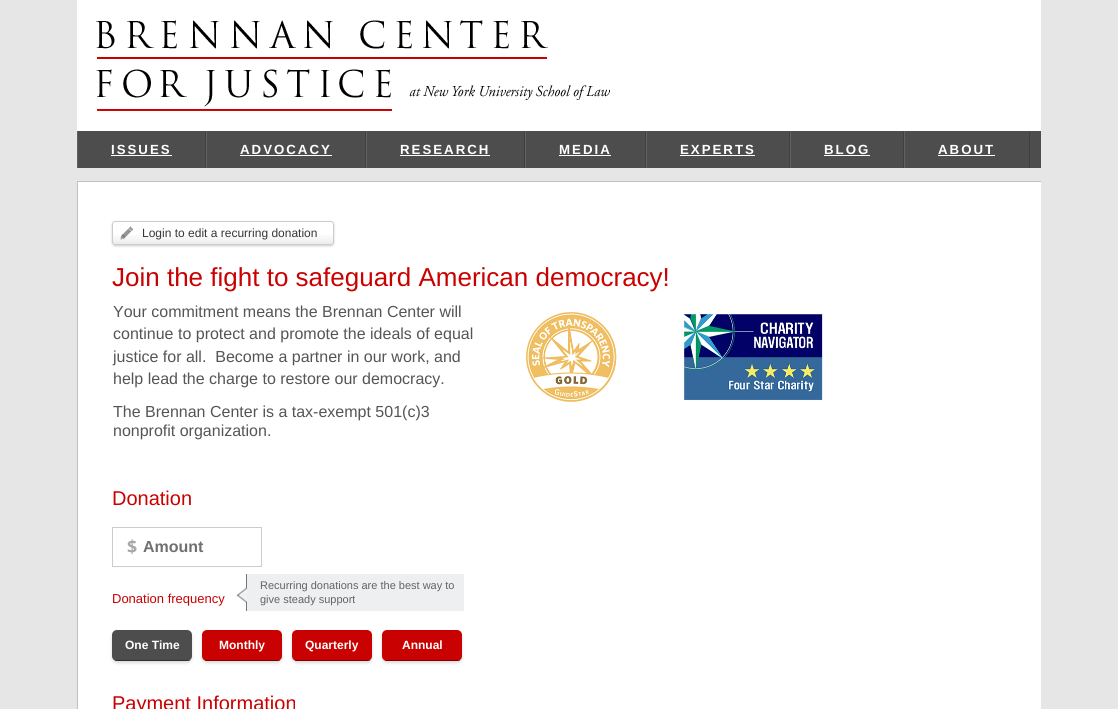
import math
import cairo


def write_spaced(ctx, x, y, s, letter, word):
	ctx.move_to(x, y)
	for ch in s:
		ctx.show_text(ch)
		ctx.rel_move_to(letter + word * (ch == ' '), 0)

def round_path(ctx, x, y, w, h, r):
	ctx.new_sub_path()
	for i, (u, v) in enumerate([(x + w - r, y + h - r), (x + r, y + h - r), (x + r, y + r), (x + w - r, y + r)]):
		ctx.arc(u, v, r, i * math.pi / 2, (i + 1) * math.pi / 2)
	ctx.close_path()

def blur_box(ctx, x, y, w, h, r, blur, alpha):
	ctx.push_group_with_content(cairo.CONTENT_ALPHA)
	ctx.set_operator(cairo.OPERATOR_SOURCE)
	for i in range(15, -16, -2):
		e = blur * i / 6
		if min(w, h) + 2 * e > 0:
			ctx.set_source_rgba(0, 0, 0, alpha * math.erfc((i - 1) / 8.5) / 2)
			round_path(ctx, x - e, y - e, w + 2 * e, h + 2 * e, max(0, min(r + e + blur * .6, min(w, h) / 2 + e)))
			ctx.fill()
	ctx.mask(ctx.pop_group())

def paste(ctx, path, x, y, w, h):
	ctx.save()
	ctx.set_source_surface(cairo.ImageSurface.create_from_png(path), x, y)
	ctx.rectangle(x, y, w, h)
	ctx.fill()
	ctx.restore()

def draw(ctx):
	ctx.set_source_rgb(0.902, 0.902, 0.902)
	ctx.paint()
	ctx.set_source_rgb(1, 1, 1)
	ctx.rectangle(77, 0, 964, 131)
	ctx.fill()
	paste(ctx, 'media/1.png', 96, 20, 514, 91)
	ctx.set_source_rgb(0.302, 0.302, 0.302)
	ctx.rectangle(78, 131, 963, 37)
	ctx.fill()
	ctx.set_source_rgb(0.251, 0.251, 0.251)
	ctx.rectangle(205, 131, 1, 37)
	ctx.fill()
	ctx.set_source_rgb(0.38, 0.38, 0.38)
	ctx.rectangle(77, 131, 1, 37)
	ctx.fill()
	ctx.select_font_face('Liberation Sans', cairo.FONT_SLANT_NORMAL, cairo.FONT_WEIGHT_BOLD)
	ctx.set_font_size(13.25)
	ctx.set_source_rgb(1, 1, 1)
	write_spaced(ctx, 111, 154, 'ISSUES', 2, 0)
	ctx.rectangle(111, 155, 61, 1)
	ctx.fill()
	ctx.set_source_rgb(0.251, 0.251, 0.251)
	ctx.rectangle(365, 131, 1, 37)
	ctx.fill()
	ctx.set_source_rgb(0.38, 0.38, 0.38)
	ctx.rectangle(206, 131, 1, 37)
	ctx.fill()
	ctx.set_source_rgb(1, 1, 1)
	write_spaced(ctx, 240, 154, 'ADVOCACY', 2, 0)
	ctx.rectangle(240, 155, 92, 1)
	ctx.fill()
	ctx.set_source_rgb(0.251, 0.251, 0.251)
	ctx.rectangle(524, 131, 1, 37)
	ctx.fill()
	ctx.set_source_rgb(0.38, 0.38, 0.38)
	ctx.rectangle(366, 131, 1, 37)
	ctx.fill()
	ctx.set_source_rgb(1, 1, 1)
	write_spaced(ctx, 400, 154, 'RESEARCH', 2, 0)
	ctx.rectangle(400, 155, 90, 1)
	ctx.fill()
	ctx.set_source_rgb(0.251, 0.251, 0.251)
	ctx.rectangle(645, 131, 1, 37)
	ctx.fill()
	ctx.set_source_rgb(0.38, 0.38, 0.38)
	ctx.rectangle(525, 131, 1, 37)
	ctx.fill()
	ctx.set_source_rgb(1, 1, 1)
	write_spaced(ctx, 559, 154, 'MEDIA', 2, 0)
	ctx.rectangle(559, 155, 52, 1)
	ctx.fill()
	ctx.set_source_rgb(0.251, 0.251, 0.251)
	ctx.rectangle(789, 131, 1, 37)
	ctx.fill()
	ctx.set_source_rgb(0.38, 0.38, 0.38)
	ctx.rectangle(646, 131, 1, 37)
	ctx.fill()
	ctx.set_source_rgb(1, 1, 1)
	write_spaced(ctx, 680, 154, 'EXPERTS', 2, 0)
	ctx.rectangle(680, 155, 75, 1)
	ctx.fill()
	ctx.set_source_rgb(0.251, 0.251, 0.251)
	ctx.rectangle(903, 131, 1, 37)
	ctx.fill()
	ctx.set_source_rgb(0.38, 0.38, 0.38)
	ctx.rectangle(790, 131, 1, 37)
	ctx.fill()
	ctx.set_source_rgb(1, 1, 1)
	write_spaced(ctx, 824, 154, 'BLOG', 2, 0)
	ctx.rectangle(824, 155, 46, 1)
	ctx.fill()
	ctx.set_source_rgb(0.251, 0.251, 0.251)
	ctx.rectangle(1029, 131, 1, 37)
	ctx.fill()
	ctx.set_source_rgb(0.38, 0.38, 0.38)
	ctx.rectangle(904, 131, 1, 37)
	ctx.fill()
	ctx.set_source_rgb(1, 1, 1)
	write_spaced(ctx, 938, 154, 'ABOUT', 2, 0)
	ctx.rectangle(938, 155, 57, 1)
	ctx.fill()
	ctx.rectangle(78, 182, 963, 527)
	ctx.fill()
	ctx.save()
	ctx.rectangle(77, 168, 964, 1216)
	ctx.clip()
	ctx.rectangle(77.5, 181.5, 993, 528)
	ctx.set_source_rgb(0.757, 0.757, 0.757)
	ctx.set_line_width(1)
	ctx.stroke()
	ctx.restore()
	ctx.save()
	ctx.set_fill_rule(cairo.FILL_RULE_EVEN_ODD)
	ctx.new_path()
	ctx.move_to(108, 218)
	ctx.line_to(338, 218)
	ctx.line_to(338, 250)
	ctx.line_to(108, 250)
	ctx.close_path()
	ctx.move_to(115, 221)
	ctx.line_to(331, 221)
	ctx.curve_to(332.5, 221, 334, 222.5, 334, 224)
	ctx.line_to(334, 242)
	ctx.curve_to(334, 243.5, 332.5, 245, 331, 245)
	ctx.line_to(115, 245)
	ctx.curve_to(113.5, 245, 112, 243.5, 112, 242)
	ctx.line_to(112, 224)
	ctx.curve_to(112, 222.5, 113.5, 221, 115, 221)
	ctx.close_path()
	ctx.clip()
	ctx.set_source_rgb(0, 0, 0)
	blur_box(ctx, 112, 222, 222, 24, 3, 1, 0.2)
	ctx.restore()
	paste(ctx, 'media/2.png', 112, 235, 222, 10)
	round_path(ctx, 112.5, 221.5, 221, 23, 2.5)
	ctx.set_source_rgb(0.8, 0.8, 0.8)
	ctx.set_line_width(1)
	ctx.stroke()
	paste(ctx, 'media/3.png', 120, 226, 13, 14)
	ctx.select_font_face('Liberation Sans')
	ctx.set_font_size(12)
	ctx.set_source_rgb(0.212, 0.212, 0.212)
	ctx.move_to(142, 237)
	ctx.show_text('Login to edit a recurring donation')
	ctx.set_font_size(26)
	ctx.set_source_rgb(0.788, 0.004, 0.004)
	ctx.move_to(112, 286)
	ctx.show_text('Join the fight to safeguard American democracy!')
	ctx.set_font_size(16)
	ctx.set_source_rgb(0.333, 0.333, 0.333)
	for x, y, s in [
		(113, 317, 'Your commitment means the Brennan Center will'),
		(113, 339, 'continue to protect and promote the ideals of equal'),
		(113, 362, 'justice for all.  Become a partner in our work, and'),
		(113, 384, 'help lead the charge to restore our democracy.'),
		(113, 417, 'The Brennan Center is a tax-exempt 501(c)3'),
		(113, 436, 'nonprofit organization.'),
	]:
		ctx.move_to(x, y)
		ctx.show_text(s)
	paste(ctx, 'media/4.png', 526, 312, 297, 90)
	ctx.set_font_size(20)
	ctx.set_source_rgb(0.788, 0.004, 0.004)
	ctx.move_to(112, 505)
	ctx.show_text('Donation')
	paste(ctx, 'media/5.png', 127, 539, 10, 15)
	ctx.rectangle(112.5, 527.5, 149, 39)
	ctx.set_source_rgb(0.8, 0.8, 0.8)
	ctx.stroke()
	ctx.select_font_face('Liberation Sans', cairo.FONT_SLANT_NORMAL, cairo.FONT_WEIGHT_BOLD)
	ctx.set_font_size(16)
	ctx.set_source_rgb(0.439, 0.439, 0.439)
	ctx.move_to(143, 552)
	ctx.show_text('Amount')
	ctx.select_font_face('Liberation Sans')
	ctx.set_font_size(13)
	ctx.set_source_rgb(0.788, 0.004, 0.004)
	ctx.move_to(112, 603)
	ctx.show_text('Donation frequency')
	ctx.set_source_rgb(0.933, 0.937, 0.945)
	ctx.rectangle(247, 574, 217, 37)
	ctx.fill()
	paste(ctx, 'media/6.png', 235, 574, 12, 37)
	ctx.set_font_size(11)
	ctx.set_source_rgb(0.388, 0.388, 0.388)
	ctx.move_to(260, 589)
	ctx.show_text('Recurring donations are the best way to')
	ctx.move_to(260, 603)
	ctx.show_text('give steady support')
	ctx.set_source_rgb(0, 0, 0)
	blur_box(ctx, 112, 632, 80, 31, 5, 1.5, 0.15)
	ctx.set_source_rgb(0.302, 0.302, 0.302)
	round_path(ctx, 112, 630, 80, 31, 5)
	ctx.fill()
	ctx.set_source_rgba(0, 0, 0, 0.4)
	ctx.rectangle(115, 660, 75, 1)
	ctx.fill()
	ctx.select_font_face('Liberation Sans', cairo.FONT_SLANT_NORMAL, cairo.FONT_WEIGHT_BOLD)
	ctx.set_font_size(12)
	ctx.set_source_rgb(1, 1, 1)
	ctx.move_to(125, 649)
	ctx.show_text('One Time')
	ctx.set_source_rgb(0, 0, 0)
	blur_box(ctx, 202, 632, 80, 31, 5, 1.5, 0.15)
	ctx.set_source_rgb(0.788, 0.004, 0.004)
	round_path(ctx, 202, 630, 80, 31, 5)
	ctx.fill()
	ctx.set_source_rgba(0, 0, 0, 0.4)
	ctx.rectangle(205, 660, 75, 1)
	ctx.fill()
	ctx.set_source_rgb(1, 1, 1)
	ctx.move_to(219, 649)
	ctx.show_text('Monthly')
	ctx.set_source_rgb(0, 0, 0)
	blur_box(ctx, 292, 632, 80, 31, 5, 1.5, 0.15)
	ctx.set_source_rgb(0.788, 0.004, 0.004)
	round_path(ctx, 292, 630, 80, 31, 5)
	ctx.fill()
	ctx.set_source_rgba(0, 0, 0, 0.4)
	ctx.rectangle(295, 660, 75, 1)
	ctx.fill()
	ctx.set_source_rgb(1, 1, 1)
	ctx.move_to(305, 649)
	ctx.show_text('Quarterly')
	ctx.set_source_rgb(0, 0, 0)
	blur_box(ctx, 382, 632, 80, 31, 5, 1.5, 0.15)
	ctx.set_source_rgb(0.788, 0.004, 0.004)
	round_path(ctx, 382, 630, 80, 31, 5)
	ctx.fill()
	ctx.set_source_rgba(0, 0, 0, 0.4)
	ctx.rectangle(385, 660, 75, 1)
	ctx.fill()
	ctx.set_source_rgb(1, 1, 1)
	ctx.move_to(402, 649)
	ctx.show_text('Annual')
	ctx.select_font_face('Liberation Sans')
	ctx.set_font_size(20)
	ctx.set_source_rgb(0.788, 0.004, 0.004)
	ctx.move_to(112, 710)
	ctx.show_text('Payment Information')


surface = cairo.ImageSurface(cairo.FORMAT_RGB24, 1118, 709)
ctx = cairo.Context(surface)
options = cairo.FontOptions()
options.set_hint_metrics(cairo.HINT_METRICS_OFF)
options.set_hint_style(cairo.HINT_STYLE_NONE)
ctx.set_font_options(options)
ctx.set_miter_limit(4)
draw(ctx)
surface.write_to_png('image.png')
